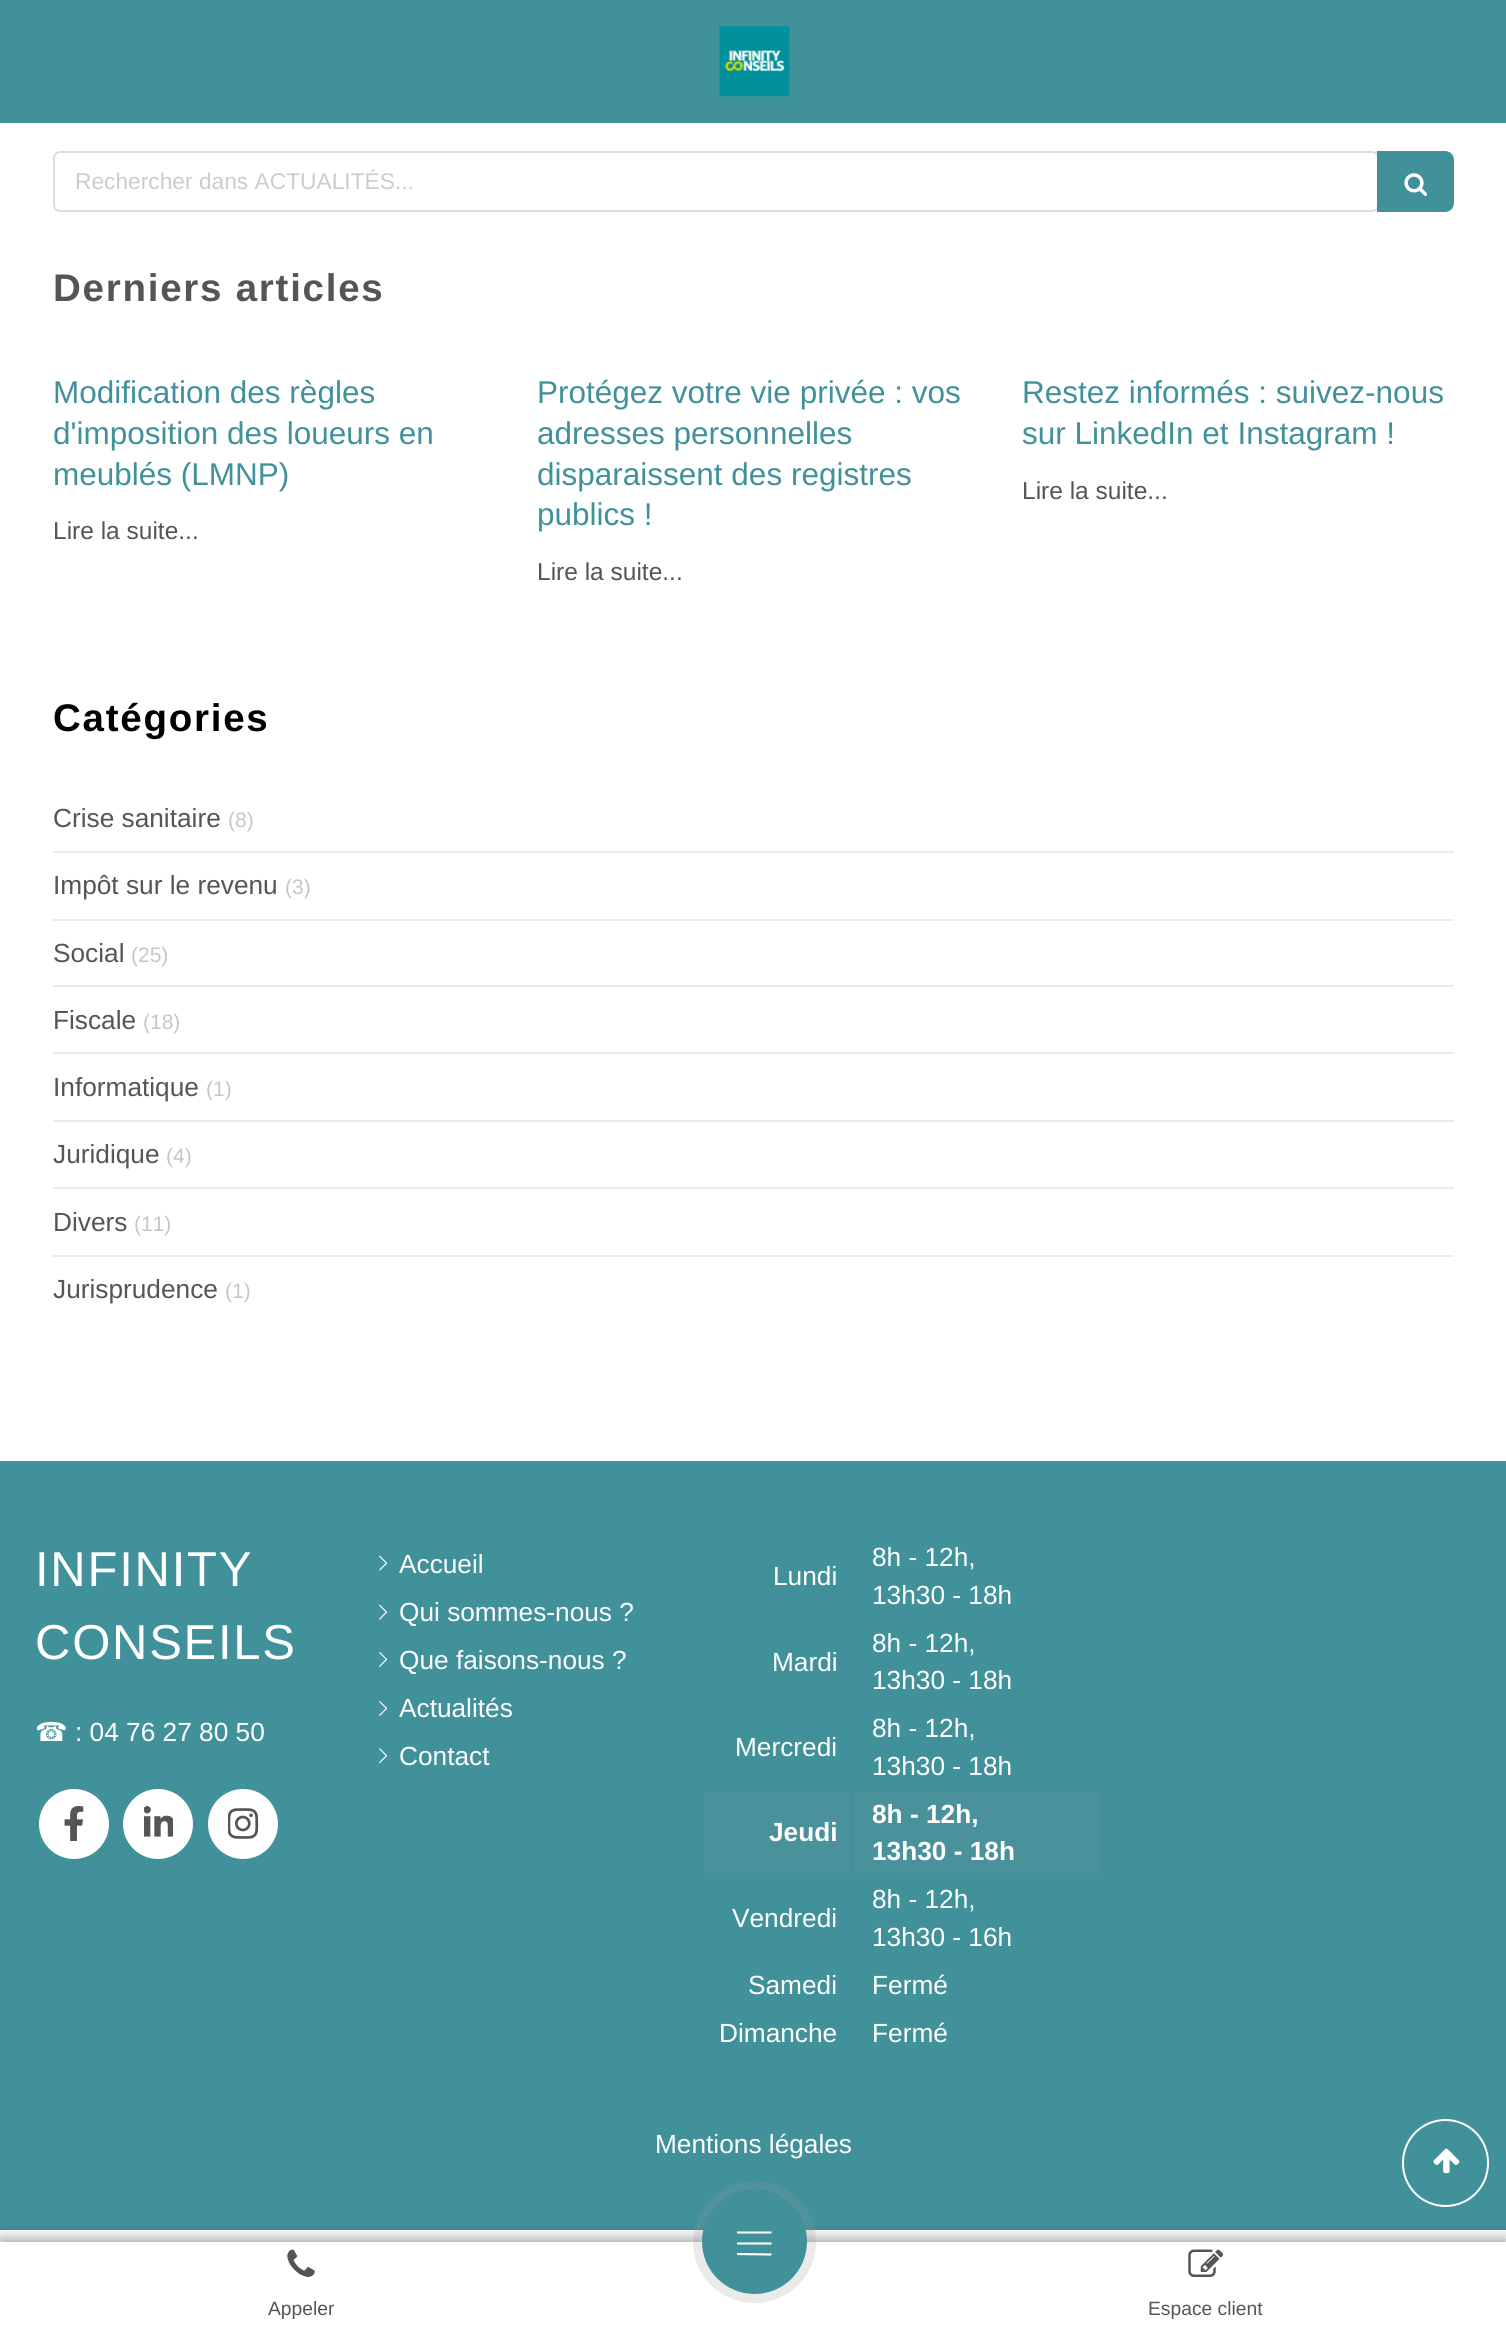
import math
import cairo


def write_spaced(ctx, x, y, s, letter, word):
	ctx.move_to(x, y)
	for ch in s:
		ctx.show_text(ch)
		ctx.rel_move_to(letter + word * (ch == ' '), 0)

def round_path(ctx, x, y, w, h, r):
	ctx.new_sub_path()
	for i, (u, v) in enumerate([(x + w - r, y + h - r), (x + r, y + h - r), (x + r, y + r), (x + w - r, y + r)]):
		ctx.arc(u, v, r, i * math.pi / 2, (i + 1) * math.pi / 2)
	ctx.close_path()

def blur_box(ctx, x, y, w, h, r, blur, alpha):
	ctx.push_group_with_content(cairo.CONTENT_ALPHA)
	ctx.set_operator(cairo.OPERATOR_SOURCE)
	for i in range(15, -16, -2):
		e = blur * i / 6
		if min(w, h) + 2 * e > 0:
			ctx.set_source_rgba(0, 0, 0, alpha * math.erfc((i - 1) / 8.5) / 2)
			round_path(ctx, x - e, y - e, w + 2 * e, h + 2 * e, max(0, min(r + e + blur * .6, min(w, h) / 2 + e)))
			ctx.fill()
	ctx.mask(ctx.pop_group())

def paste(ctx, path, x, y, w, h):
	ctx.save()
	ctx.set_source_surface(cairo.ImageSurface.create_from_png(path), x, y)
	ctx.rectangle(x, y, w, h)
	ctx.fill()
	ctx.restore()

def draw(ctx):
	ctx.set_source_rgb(1, 1, 1)
	ctx.paint()
	ctx.set_source_rgb(0.255, 0.569, 0.608)
	ctx.rectangle(0, 0, 1506, 123)
	ctx.fill()
	paste(ctx, 'media/1.png', 718, 26, 72, 71)
	round_path(ctx, 54, 152, 1324, 59, 6)
	ctx.set_source_rgb(0.867, 0.867, 0.867)
	ctx.stroke()
	ctx.select_font_face('Liberation Sans')
	ctx.set_font_size(22.75)
	ctx.set_source_rgb(0.8, 0.8, 0.8)
	ctx.move_to(75, 189)
	ctx.show_text('Rechercher dans ACTUALITÉS...')
	ctx.set_source_rgb(0.255, 0.569, 0.608)
	ctx.new_path()
	ctx.move_to(1377, 151)
	ctx.line_to(1445, 151)
	ctx.curve_to(1450, 151, 1454, 155, 1454, 160)
	ctx.line_to(1454, 203)
	ctx.curve_to(1454, 208, 1450, 212, 1445, 212)
	ctx.line_to(1377, 212)
	ctx.close_path()
	ctx.fill()
	paste(ctx, 'media/2.png', 1404, 173, 24, 23)
	ctx.select_font_face('Liberation Sans', cairo.FONT_SLANT_NORMAL, cairo.FONT_WEIGHT_BOLD)
	ctx.set_font_size(38.5)
	ctx.set_source_rgb(0.333, 0.333, 0.333)
	write_spaced(ctx, 53, 301, 'Derniers articles', 1.75, 0)
	ctx.select_font_face('Liberation Sans')
	ctx.set_font_size(31.5)
	ctx.set_source_rgb(0.255, 0.569, 0.608)
	for x, y, s in [
		(53, 403, 'Modification des règles'),
		(53, 444, 'd\'imposition des loueurs en'),
		(53, 485, 'meublés (LMNP)'),
	]:
		ctx.move_to(x, y)
		ctx.show_text(s)
	ctx.set_font_size(24.5)
	ctx.set_source_rgb(0.333, 0.333, 0.333)
	ctx.move_to(53, 539)
	ctx.show_text('Lire la suite...')
	ctx.set_font_size(31.5)
	ctx.set_source_rgb(0.255, 0.569, 0.608)
	for x, y, s in [
		(537, 403, 'Protégez votre vie privée : vos'),
		(537, 444, 'adresses personnelles'),
		(537, 485, 'disparaissent des registres'),
		(537, 525, 'publics !'),
	]:
		ctx.move_to(x, y)
		ctx.show_text(s)
	ctx.set_font_size(24.5)
	ctx.set_source_rgb(0.333, 0.333, 0.333)
	ctx.move_to(537, 580)
	ctx.show_text('Lire la suite...')
	ctx.set_font_size(31.5)
	ctx.set_source_rgb(0.255, 0.569, 0.608)
	ctx.move_to(1022, 403)
	ctx.show_text('Restez informés : suivez-nous')
	ctx.move_to(1022, 444)
	ctx.show_text('sur LinkedIn et Instagram !')
	ctx.set_font_size(24.5)
	ctx.set_source_rgb(0.333, 0.333, 0.333)
	ctx.move_to(1022, 499)
	ctx.show_text('Lire la suite...')
	ctx.select_font_face('Liberation Sans', cairo.FONT_SLANT_NORMAL, cairo.FONT_WEIGHT_BOLD)
	ctx.set_font_size(38.5)
	ctx.set_source_rgb(0, 0, 0)
	write_spaced(ctx, 53, 731, 'Catégories', 1.75, 0)
	ctx.select_font_face('Liberation Sans')
	ctx.set_font_size(26.25)
	ctx.set_source_rgb(0.333, 0.333, 0.333)
	ctx.move_to(53, 827)
	ctx.show_text('Crise sanitaire')
	ctx.set_font_size(21)
	ctx.set_source_rgb(0.776, 0.776, 0.776)
	ctx.move_to(228, 827)
	ctx.show_text('(8)')
	ctx.set_source_rgb(0.918, 0.918, 0.918)
	ctx.rectangle(53, 851, 1401, 2)
	ctx.fill()
	ctx.set_font_size(26.25)
	ctx.set_source_rgb(0.333, 0.333, 0.333)
	ctx.move_to(53, 894)
	ctx.show_text('Impôt sur le revenu')
	ctx.set_font_size(21)
	ctx.set_source_rgb(0.776, 0.776, 0.776)
	ctx.move_to(285, 894)
	ctx.show_text('(3)')
	ctx.set_source_rgb(0.918, 0.918, 0.918)
	ctx.rectangle(53, 919, 1401, 2)
	ctx.fill()
	ctx.set_font_size(26.25)
	ctx.set_source_rgb(0.333, 0.333, 0.333)
	ctx.move_to(53, 962)
	ctx.show_text('Social')
	ctx.set_font_size(21)
	ctx.set_source_rgb(0.776, 0.776, 0.776)
	ctx.move_to(131, 962)
	ctx.show_text('(25)')
	ctx.set_source_rgb(0.918, 0.918, 0.918)
	ctx.rectangle(53, 985, 1401, 2)
	ctx.fill()
	ctx.set_font_size(26.25)
	ctx.set_source_rgb(0.333, 0.333, 0.333)
	ctx.move_to(53, 1029)
	ctx.show_text('Fiscale')
	ctx.set_font_size(21)
	ctx.set_source_rgb(0.776, 0.776, 0.776)
	ctx.move_to(143, 1029)
	ctx.show_text('(18)')
	ctx.set_source_rgb(0.918, 0.918, 0.918)
	ctx.rectangle(53, 1052, 1401, 2)
	ctx.fill()
	ctx.set_font_size(26.25)
	ctx.set_source_rgb(0.333, 0.333, 0.333)
	ctx.move_to(53, 1096)
	ctx.show_text('Informatique')
	ctx.set_font_size(21)
	ctx.set_source_rgb(0.776, 0.776, 0.776)
	ctx.move_to(206, 1096)
	ctx.show_text('(1)')
	ctx.set_source_rgb(0.918, 0.918, 0.918)
	ctx.rectangle(53, 1120, 1401, 2)
	ctx.fill()
	ctx.set_font_size(26.25)
	ctx.set_source_rgb(0.333, 0.333, 0.333)
	ctx.move_to(53, 1163)
	ctx.show_text('Juridique')
	ctx.set_font_size(21)
	ctx.set_source_rgb(0.776, 0.776, 0.776)
	ctx.move_to(166, 1163)
	ctx.show_text('(4)')
	ctx.set_source_rgb(0.918, 0.918, 0.918)
	ctx.rectangle(53, 1187, 1401, 2)
	ctx.fill()
	ctx.set_font_size(26.25)
	ctx.set_source_rgb(0.333, 0.333, 0.333)
	ctx.move_to(53, 1231)
	ctx.show_text('Divers')
	ctx.set_font_size(21)
	ctx.set_source_rgb(0.776, 0.776, 0.776)
	ctx.move_to(134, 1231)
	ctx.show_text('(11)')
	ctx.set_source_rgb(0.918, 0.918, 0.918)
	ctx.rectangle(53, 1255, 1401, 2)
	ctx.fill()
	ctx.set_font_size(26.25)
	ctx.set_source_rgb(0.333, 0.333, 0.333)
	ctx.move_to(53, 1298)
	ctx.show_text('Jurisprudence')
	ctx.set_font_size(21)
	ctx.set_source_rgb(0.776, 0.776, 0.776)
	ctx.move_to(225, 1298)
	ctx.show_text('(1)')
	ctx.set_source_rgb(0.255, 0.569, 0.608)
	ctx.rectangle(0, 1461, 1506, 769)
	ctx.fill()
	ctx.set_font_size(49)
	ctx.set_source_rgb(1, 1, 1)
	write_spaced(ctx, 35, 1586, 'INFINITY', 1.75, 0)
	write_spaced(ctx, 35, 1659, 'CONSEILS', 1.75, 0)
	ctx.select_font_face('DejaVu Sans')
	ctx.set_font_size(26.25)
	ctx.move_to(35, 1741)
	ctx.show_text('☎')
	ctx.select_font_face('Liberation Sans')
	ctx.move_to(75, 1741)
	ctx.show_text(': 04 76 27 80 50')
	ctx.new_path()
	ctx.arc(74, 1824, 35, 0, 2 * math.pi)
	ctx.fill()
	paste(ctx, 'media/3.png', 64, 1806, 20, 35)
	ctx.arc(158, 1824, 35, 0, 2 * math.pi)
	ctx.fill()
	paste(ctx, 'media/4.png', 144, 1806, 29, 31)
	ctx.arc(243, 1824, 35, 0, 2 * math.pi)
	ctx.fill()
	paste(ctx, 'media/5.png', 228, 1808, 31, 31)
	paste(ctx, 'media/6.png', 379, 1555, 9, 16)
	ctx.move_to(399, 1573)
	ctx.show_text('Accueil')
	paste(ctx, 'media/6.png', 379, 1604, 9, 16)
	ctx.move_to(399, 1621)
	ctx.show_text('Qui sommes-nous ?')
	paste(ctx, 'media/7.png', 379, 1652, 9, 15)
	ctx.move_to(399, 1669)
	ctx.show_text('Que faisons-nous ?')
	paste(ctx, 'media/7.png', 379, 1701, 9, 15)
	ctx.move_to(399, 1717)
	ctx.show_text('Actualités')
	paste(ctx, 'media/8.png', 379, 1748, 9, 16)
	for x, y, s in [
		(399, 1765, 'Contact'),
		(773, 1585, 'Lundi'),
		(872, 1566, '8h - 12h,'),
		(872, 1604, '13h30 - 18h'),
		(772, 1671, 'Mardi'),
		(872, 1652, '8h - 12h,'),
		(872, 1689, '13h30 - 18h'),
		(735, 1756, 'Mercredi'),
		(872, 1737, '8h - 12h,'),
		(872, 1775, '13h30 - 18h'),
	]:
		ctx.move_to(x, y)
		ctx.show_text(s)
	ctx.set_source_rgb(0.29, 0.573, 0.608)
	ctx.rectangle(705, 1792, 396, 81)
	ctx.fill()
	ctx.set_source_rgb(0.255, 0.569, 0.608)
	ctx.rectangle(851, 1792, 4, 81)
	ctx.fill()
	ctx.select_font_face('Liberation Sans', cairo.FONT_SLANT_NORMAL, cairo.FONT_WEIGHT_BOLD)
	ctx.set_source_rgb(1, 1, 1)
	for x, y, s in [
		(769, 1841, 'Jeudi'),
		(872, 1823, '8h - 12h,'),
		(872, 1860, '13h30 - 18h'),
	]:
		ctx.move_to(x, y)
		ctx.show_text(s)
	ctx.select_font_face('Liberation Sans')
	for x, y, s in [
		(732, 1927, 'Vendredi'),
		(872, 1908, '8h - 12h,'),
		(872, 1946, '13h30 - 16h'),
		(748, 1994, 'Samedi'),
		(872, 1994, 'Fermé'),
		(719, 2042, 'Dimanche'),
		(872, 2042, 'Fermé'),
		(655, 2153, 'Mentions légales'),
	]:
		ctx.move_to(x, y)
		ctx.show_text(s)
	round_path(ctx, 1403, 2120, 85, 86, 42.5)
	ctx.stroke()
	paste(ctx, 'media/9.png', 1433, 2148, 27, 26)
	ctx.set_source_rgb(0, 0, 0)
	blur_box(ctx, 0, 2242, 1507, 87, 0, 9, 0.5)
	ctx.set_source_rgb(1, 1, 1)
	ctx.rectangle(0, 2242, 1506, 86)
	ctx.fill()
	ctx.set_source_rgba(0.588, 0.588, 0.588, 0.2)
	round_path(ctx, 693, 2181, 123, 122, 61)
	ctx.fill()
	ctx.set_source_rgb(0.255, 0.569, 0.608)
	ctx.arc(754.5, 2241.5, 52.5, 0, 2 * math.pi)
	ctx.fill()
	ctx.new_path()
	ctx.move_to(737, 2243.5)
	ctx.line_to(771.5, 2243.5)
	ctx.move_to(737, 2232.5)
	ctx.line_to(771.5, 2232.5)
	ctx.move_to(737, 2254)
	ctx.line_to(771.5, 2254.5)
	ctx.set_source_rgb(1, 1, 1)
	ctx.set_line_width(2.1)
	ctx.stroke()
	paste(ctx, 'media/10.png', 287, 2249, 28, 28)
	ctx.set_font_size(19.25)
	ctx.set_source_rgb(0.333, 0.333, 0.333)
	ctx.move_to(268, 2315)
	ctx.show_text('Appeler')
	paste(ctx, 'media/11.png', 1188, 2249, 35, 28)
	ctx.move_to(1148, 2315)
	ctx.show_text('Espace client')


surface = cairo.ImageSurface(cairo.FORMAT_RGB24, 1506, 2328)
ctx = cairo.Context(surface)
options = cairo.FontOptions()
options.set_hint_metrics(cairo.HINT_METRICS_OFF)
options.set_hint_style(cairo.HINT_STYLE_NONE)
ctx.set_font_options(options)
ctx.set_miter_limit(4)
draw(ctx)
surface.write_to_png('image.png')
